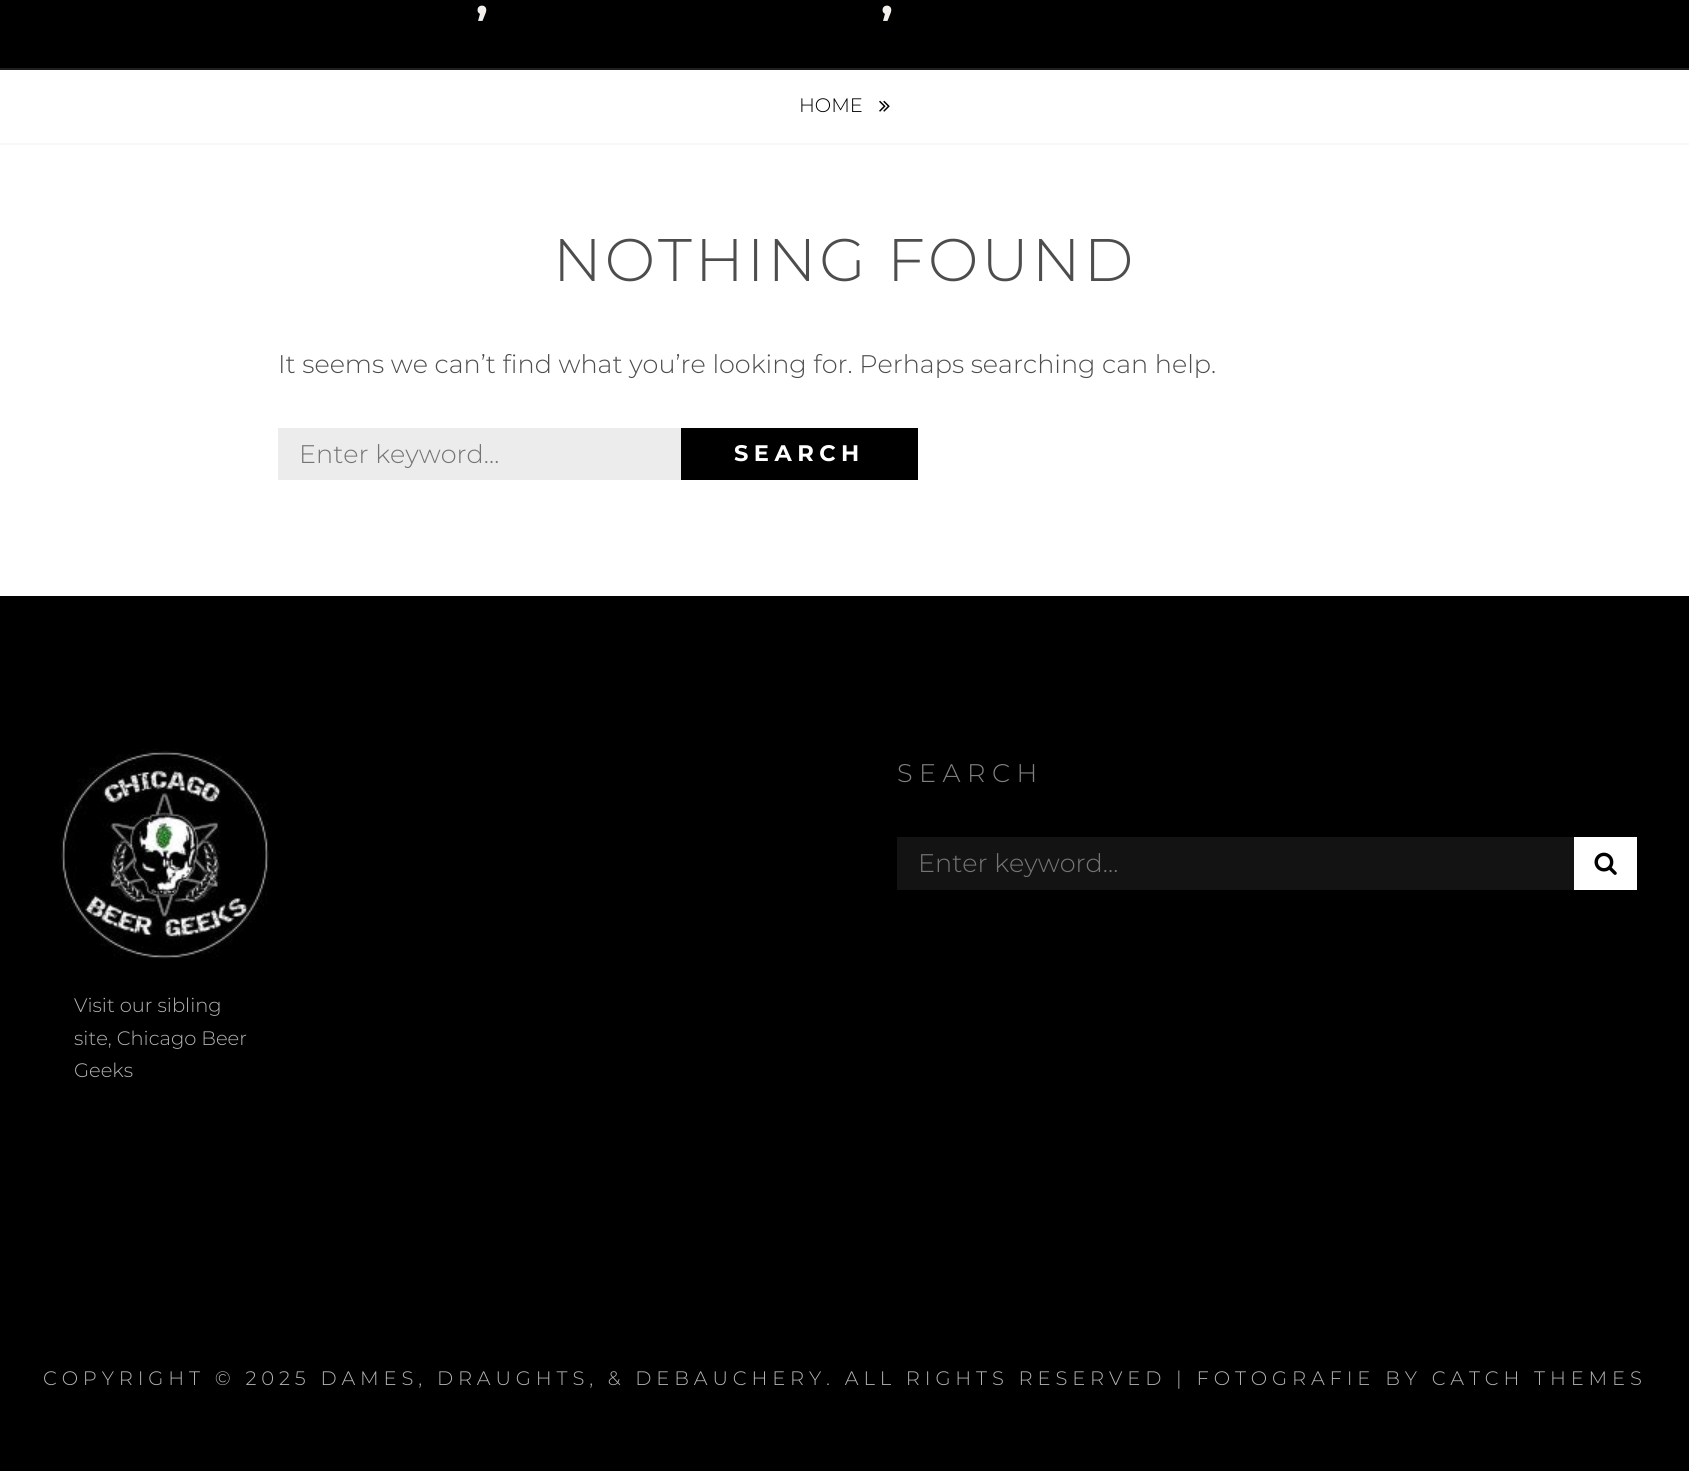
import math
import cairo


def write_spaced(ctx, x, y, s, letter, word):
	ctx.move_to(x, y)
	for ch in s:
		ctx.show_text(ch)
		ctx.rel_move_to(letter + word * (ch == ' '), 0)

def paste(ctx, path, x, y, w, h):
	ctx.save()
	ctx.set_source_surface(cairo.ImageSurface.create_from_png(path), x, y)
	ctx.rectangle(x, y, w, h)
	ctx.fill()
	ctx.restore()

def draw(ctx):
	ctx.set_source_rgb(1, 1, 1)
	ctx.paint()
	ctx.set_source_rgb(0, 0, 0)
	ctx.rectangle(0, 0, 1689, 68)
	ctx.fill()
	ctx.select_font_face('Montserrat', cairo.FONT_SLANT_NORMAL, cairo.FONT_WEIGHT_BOLD)
	ctx.set_font_size(45)
	ctx.set_source_rgb(0.949, 0.937, 0.929)
	write_spaced(ctx, 476, 14, ',', 11, 0)
	write_spaced(ctx, 881, 14, ',', 11, 0)
	ctx.set_source_rgb(0.122, 0.122, 0.122)
	ctx.rectangle(0, 68, 1689, 2)
	ctx.fill()
	ctx.set_source_rgb(0.969, 0.969, 0.969)
	ctx.rectangle(0, 143, 1689, 2)
	ctx.fill()
	ctx.select_font_face('Montserrat Light')
	ctx.set_font_size(19.5)
	ctx.set_source_rgb(0, 0, 0)
	ctx.move_to(799, 112)
	ctx.show_text('HOME')
	paste(ctx, 'media/1.png', 879, 100, 11, 12)
	ctx.set_font_size(60)
	ctx.set_source_rgb(0.302, 0.302, 0.302)
	write_spaced(ctx, 553, 281, 'NOTHING FOUND', 3, 0)
	ctx.set_font_size(25.5)
	ctx.move_to(278, 373)
	ctx.show_text('It seems we can’t find what you’re looking for. Perhaps searching can help.')
	ctx.set_source_rgb(0.922, 0.922, 0.922)
	ctx.rectangle(278, 428, 403, 52)
	ctx.fill()
	ctx.set_source_rgb(0.459, 0.459, 0.459)
	ctx.move_to(299, 463)
	ctx.show_text('Enter keyword…')
	ctx.set_source_rgb(0, 0, 0)
	ctx.rectangle(681, 428, 237, 52)
	ctx.fill()
	ctx.select_font_face('Montserrat', cairo.FONT_SLANT_NORMAL, cairo.FONT_WEIGHT_BOLD)
	ctx.set_font_size(22.5)
	ctx.set_source_rgb(1, 1, 1)
	write_spaced(ctx, 734, 461, 'SEARCH', 5.5, 0)
	ctx.set_source_rgb(0, 0, 0)
	ctx.rectangle(0, 596, 1689, 875)
	ctx.fill()
	ctx.select_font_face('Montserrat Light')
	ctx.set_font_size(25.5)
	ctx.set_source_rgb(0.502, 0.502, 0.502)
	write_spaced(ctx, 897, 782, 'SEARCH', 6.5, 0)
	ctx.set_source_rgb(0.078, 0.078, 0.078)
	ctx.rectangle(897, 837, 677, 53)
	ctx.fill()
	ctx.set_source_rgb(0.459, 0.459, 0.459)
	ctx.move_to(918, 872)
	ctx.show_text('Enter keyword…')
	ctx.set_source_rgb(1, 1, 1)
	ctx.rectangle(1574, 837, 63, 53)
	ctx.fill()
	paste(ctx, 'media/2.png', 1594, 852, 23, 23)
	paste(ctx, 'media/3.png', 59, 749, 210, 210)
	ctx.set_font_size(19.5)
	ctx.set_source_rgb(0.702, 0.702, 0.702)
	for x, y, s in [
		(74, 1012, 'Visit our sibling'),
		(74, 1045, 'site, Chicago Beer'),
		(74, 1077, 'Geeks'),
	]:
		ctx.move_to(x, y)
		ctx.show_text(s)
	write_spaced(ctx, 43, 1385, 'COPYRIGHT © 2025 DAMES, DRAUGHTS, & DEBAUCHERY. ALL RIGHTS RESERVED | FOTOGRAFIE BY CATCH THEMES', 4.88, 0)


surface = cairo.ImageSurface(cairo.FORMAT_RGB24, 1689, 1471)
ctx = cairo.Context(surface)
options = cairo.FontOptions()
options.set_hint_metrics(cairo.HINT_METRICS_OFF)
options.set_hint_style(cairo.HINT_STYLE_NONE)
ctx.set_font_options(options)
ctx.set_miter_limit(4)
draw(ctx)
surface.write_to_png('image.png')
